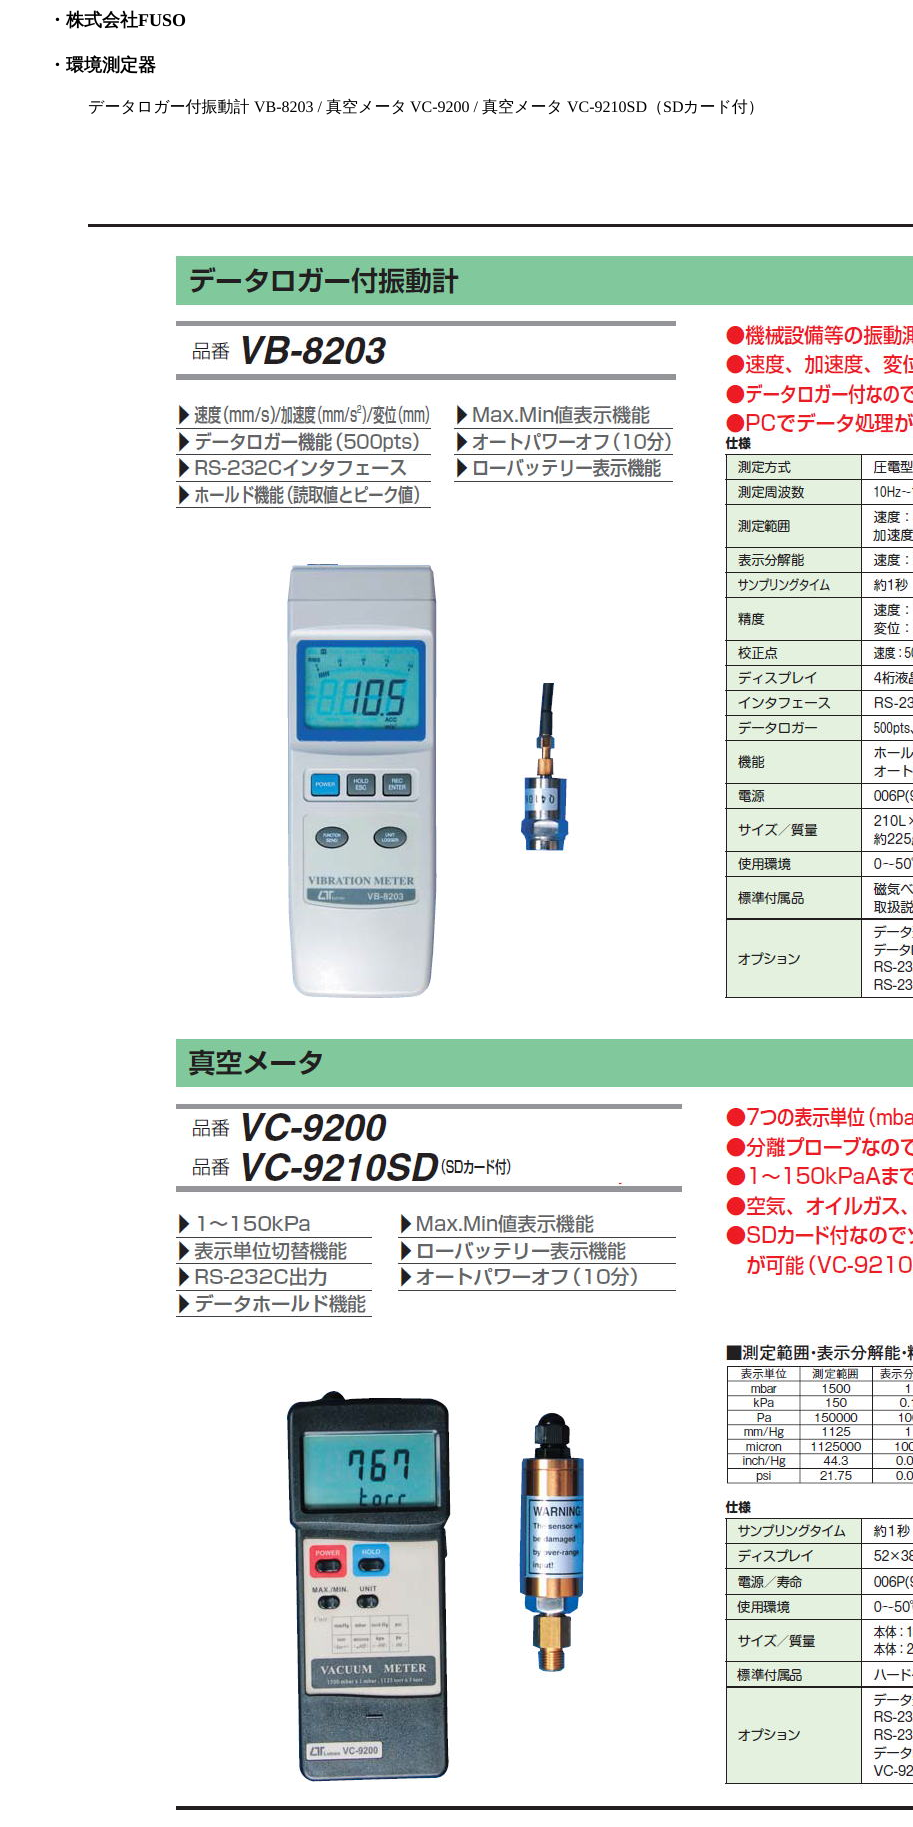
import math
import cairo


def paste(ctx, path, x, y, w, h):
	ctx.save()
	ctx.set_source_surface(cairo.ImageSurface.create_from_png(path), x, y)
	ctx.rectangle(x, y, w, h)
	ctx.fill()
	ctx.restore()

def draw(ctx):
	ctx.set_source_rgb(1, 1, 1)
	ctx.paint()
	ctx.select_font_face('WenQuanYi Zen Hei', cairo.FONT_SLANT_NORMAL, cairo.FONT_WEIGHT_BOLD)
	ctx.set_font_size(18)
	ctx.set_source_rgb(0, 0, 0)
	ctx.move_to(48, 26)
	ctx.show_text('・株式会社')
	ctx.select_font_face('Liberation Serif', cairo.FONT_SLANT_NORMAL, cairo.FONT_WEIGHT_BOLD)
	ctx.move_to(138, 26)
	ctx.show_text('FUSO')
	ctx.select_font_face('WenQuanYi Zen Hei', cairo.FONT_SLANT_NORMAL, cairo.FONT_WEIGHT_BOLD)
	ctx.move_to(48, 71)
	ctx.show_text('・環境測定器')
	ctx.select_font_face('WenQuanYi Zen Hei Medium')
	ctx.set_font_size(16)
	ctx.move_to(88, 112)
	ctx.show_text('データロガー付振動計')
	ctx.select_font_face('Liberation Serif')
	ctx.move_to(254, 112)
	ctx.show_text('VB-8203 /')
	ctx.select_font_face('WenQuanYi Zen Hei Medium')
	ctx.move_to(326, 112)
	ctx.show_text('真空メータ')
	ctx.select_font_face('Liberation Serif')
	ctx.move_to(410, 112)
	ctx.show_text('VC-9200 /')
	ctx.select_font_face('WenQuanYi Zen Hei Medium')
	ctx.move_to(482, 112)
	ctx.show_text('真空メータ')
	ctx.select_font_face('Liberation Serif')
	ctx.move_to(567, 112)
	ctx.show_text('VC-9210SD')
	ctx.select_font_face('WenQuanYi Zen Hei Medium')
	ctx.move_to(647, 112)
	ctx.show_text('（')
	ctx.select_font_face('Liberation Serif')
	ctx.move_to(663, 112)
	ctx.show_text('SD')
	ctx.select_font_face('WenQuanYi Zen Hei Medium')
	ctx.move_to(683, 112)
	ctx.show_text('カード付）')
	paste(ctx, 'media/1.png', 88, 224, 825, 1586)


surface = cairo.ImageSurface(cairo.FORMAT_RGB24, 913, 1827)
ctx = cairo.Context(surface)
options = cairo.FontOptions()
options.set_hint_metrics(cairo.HINT_METRICS_OFF)
options.set_hint_style(cairo.HINT_STYLE_NONE)
ctx.set_font_options(options)
ctx.set_miter_limit(4)
draw(ctx)
surface.write_to_png('image.png')
